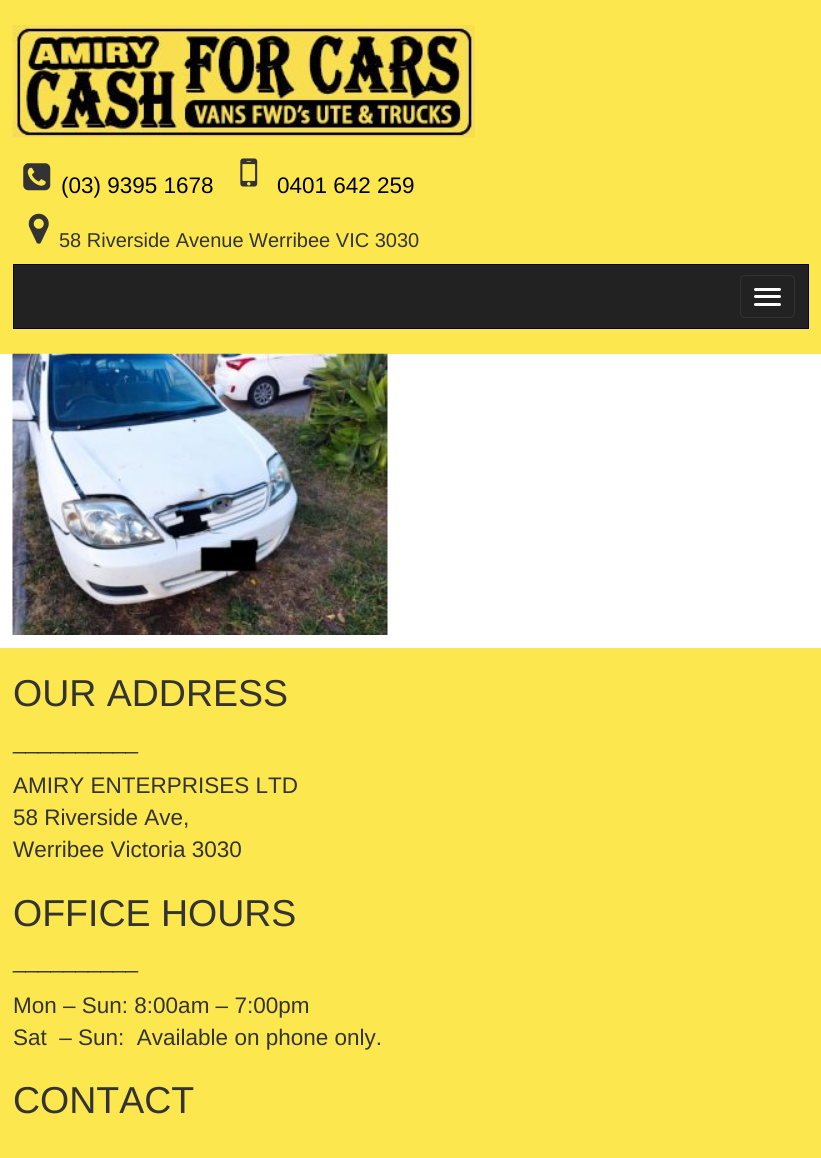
import math
import cairo


def round_path(ctx, x, y, w, h, r):
	ctx.new_sub_path()
	for i, (u, v) in enumerate([(x + w - r, y + h - r), (x + r, y + h - r), (x + r, y + r), (x + w - r, y + r)]):
		ctx.arc(u, v, r, i * math.pi / 2, (i + 1) * math.pi / 2)
	ctx.close_path()

def paste(ctx, path, x, y, w, h):
	ctx.save()
	ctx.set_source_surface(cairo.ImageSurface.create_from_png(path), x, y)
	ctx.rectangle(x, y, w, h)
	ctx.fill()
	ctx.restore()

def draw(ctx):
	ctx.set_source_rgb(1, 1, 1)
	ctx.paint()
	ctx.set_source_rgb(0.988, 0.906, 0.306)
	ctx.rectangle(0, 0, 821, 354)
	ctx.fill()
	paste(ctx, 'media/1.png', 12, 25, 463, 113)
	paste(ctx, 'media/2.png', 23, 163, 28, 28)
	ctx.select_font_face('Liberation Sans')
	ctx.set_font_size(22.5)
	ctx.set_source_rgb(0, 0, 0)
	ctx.move_to(61, 193)
	ctx.show_text('(03) 9395 1678')
	paste(ctx, 'media/3.png', 240, 158, 18, 29)
	ctx.move_to(277, 193)
	ctx.show_text('0401 642 259')
	paste(ctx, 'media/4.png', 28, 213, 21, 31)
	ctx.set_font_size(20)
	ctx.set_source_rgb(0.2, 0.2, 0.2)
	ctx.move_to(59, 247)
	ctx.show_text('58 Riverside Avenue Werribee VIC 3030')
	ctx.set_source_rgb(0.133, 0.133, 0.133)
	ctx.rectangle(13.5, 264.5, 795, 64)
	ctx.fill_preserve()
	ctx.set_source_rgb(0.031, 0.031, 0.031)
	ctx.set_line_width(1)
	ctx.stroke()
	round_path(ctx, 740.5, 275.5, 54, 42, 4.5)
	ctx.set_source_rgb(0.2, 0.2, 0.2)
	ctx.stroke()
	ctx.set_source_rgb(1, 1, 1)
	round_path(ctx, 754, 288, 27, 3, 1.5)
	ctx.fill()
	round_path(ctx, 754, 295, 27, 3, 1.5)
	ctx.fill()
	round_path(ctx, 754, 303, 27, 3, 1.5)
	ctx.fill()
	paste(ctx, 'media/5.png', 12, 353, 376, 282)
	ctx.set_source_rgb(0.988, 0.906, 0.306)
	ctx.rectangle(0, 648, 821, 510)
	ctx.fill()
	ctx.set_font_size(37.5)
	ctx.set_source_rgb(0.2, 0.2, 0.2)
	ctx.move_to(13, 706)
	ctx.show_text('OUR ADDRESS')
	ctx.set_font_size(22.5)
	for x, y, s in [
		(13, 749, '__________'),
		(13, 793, 'AMIRY ENTERPRISES LTD'),
		(13, 825, '58 Riverside Ave,'),
		(13, 857, 'Werribee Victoria 3030'),
	]:
		ctx.move_to(x, y)
		ctx.show_text(s)
	ctx.set_font_size(37.5)
	ctx.move_to(13, 926)
	ctx.show_text('OFFICE HOURS')
	ctx.set_font_size(22.5)
	for x, y, s in [
		(13, 968, '__________'),
		(13, 1013, 'Mon – Sun: 8:00am – 7:00pm'),
		(13, 1045, 'Sat  – Sun:  Available on phone only.'),
	]:
		ctx.move_to(x, y)
		ctx.show_text(s)
	ctx.set_font_size(37.5)
	ctx.move_to(13, 1113)
	ctx.show_text('CONTACT')


surface = cairo.ImageSurface(cairo.FORMAT_RGB24, 821, 1158)
ctx = cairo.Context(surface)
options = cairo.FontOptions()
options.set_hint_metrics(cairo.HINT_METRICS_OFF)
options.set_hint_style(cairo.HINT_STYLE_NONE)
ctx.set_font_options(options)
ctx.set_miter_limit(4)
draw(ctx)
surface.write_to_png('image.png')
